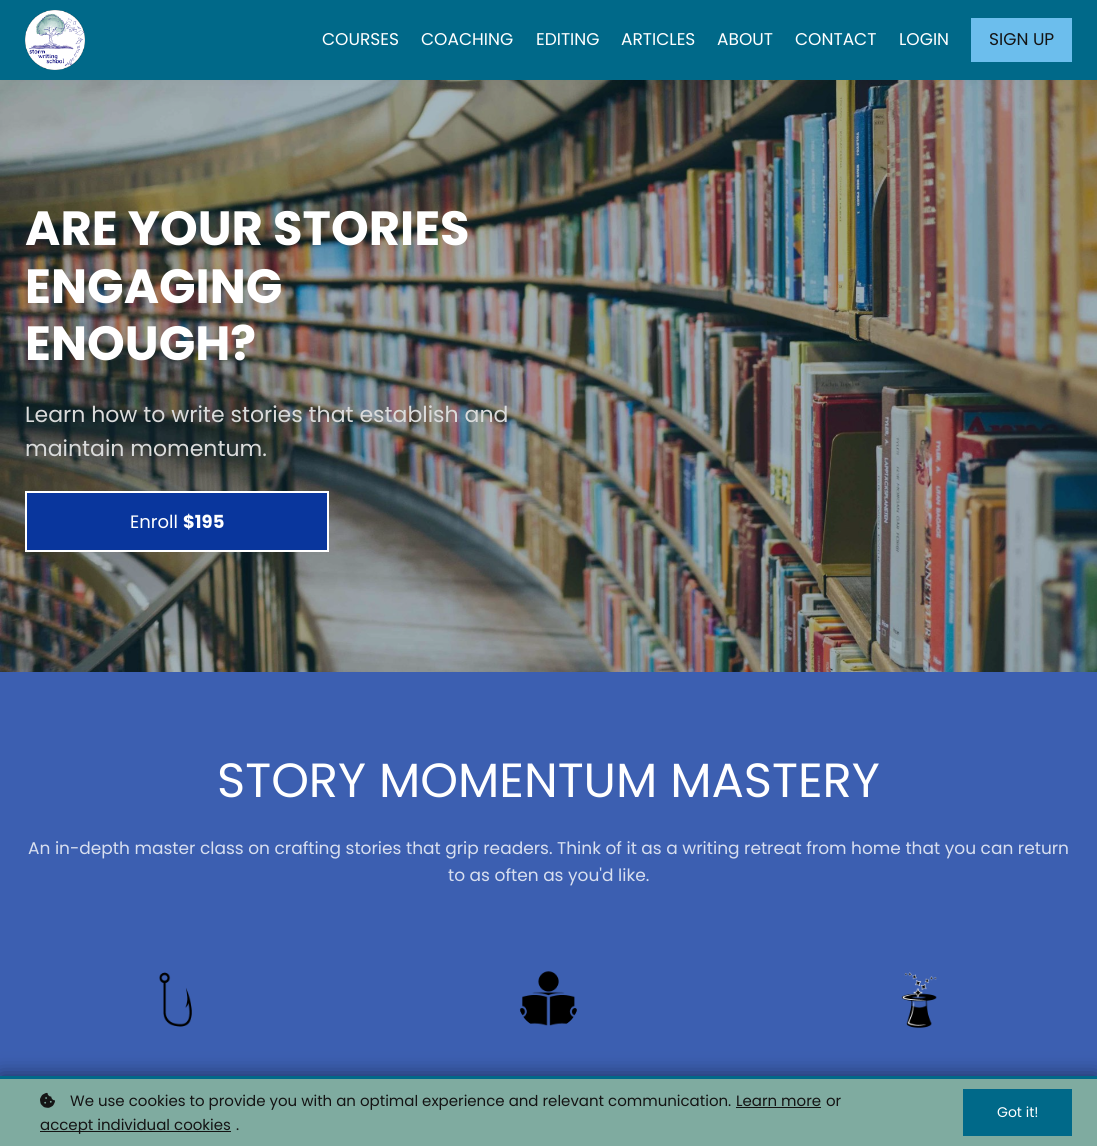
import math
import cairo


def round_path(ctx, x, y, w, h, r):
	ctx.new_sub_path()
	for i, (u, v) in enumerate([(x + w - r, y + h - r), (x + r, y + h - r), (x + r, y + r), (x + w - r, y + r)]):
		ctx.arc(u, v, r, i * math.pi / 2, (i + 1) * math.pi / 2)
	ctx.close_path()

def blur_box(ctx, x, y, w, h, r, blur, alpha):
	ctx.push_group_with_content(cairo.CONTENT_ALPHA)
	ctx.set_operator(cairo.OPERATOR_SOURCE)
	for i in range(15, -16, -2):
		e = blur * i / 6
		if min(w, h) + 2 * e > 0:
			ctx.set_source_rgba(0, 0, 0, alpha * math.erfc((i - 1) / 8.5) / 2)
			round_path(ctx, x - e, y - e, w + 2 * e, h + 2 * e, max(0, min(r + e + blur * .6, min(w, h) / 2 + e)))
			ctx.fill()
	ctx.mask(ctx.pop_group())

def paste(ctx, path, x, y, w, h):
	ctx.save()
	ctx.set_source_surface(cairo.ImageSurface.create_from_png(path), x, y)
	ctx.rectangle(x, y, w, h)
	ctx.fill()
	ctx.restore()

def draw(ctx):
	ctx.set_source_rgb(1, 1, 1)
	ctx.paint()
	paste(ctx, 'media/2.png', 0, 80, 1097, 592)
	ctx.set_source_rgb(0, 0, 0)
	blur_box(ctx, 0, 0, 1097, 80, 0, 7.5, 0.05)
	ctx.set_source_rgb(0, 0.412, 0.537)
	ctx.rectangle(0, 0, 1097, 80)
	ctx.fill()
	paste(ctx, 'media/1.png', 25, 10, 60, 60)
	ctx.select_font_face('Poppins')
	ctx.set_font_size(17)
	ctx.set_source_rgb(1, 1, 1)
	for x, y, s in [
		(322, 45, 'COURSES'),
		(421, 45, 'COACHING'),
		(536, 45, 'EDITING'),
		(621, 45, 'ARTICLES'),
		(717, 45, 'ABOUT'),
		(795, 45, 'CONTACT'),
		(899, 45, 'LOGIN'),
	]:
		ctx.move_to(x, y)
		ctx.show_text(s)
	ctx.set_source_rgb(0.424, 0.745, 0.929)
	ctx.rectangle(971, 18, 101, 44)
	ctx.fill()
	ctx.set_source_rgb(0.082, 0.082, 0.082)
	ctx.move_to(989, 45)
	ctx.show_text('SIGN UP')
	ctx.select_font_face('Poppins', cairo.FONT_SLANT_NORMAL, cairo.FONT_WEIGHT_BOLD)
	ctx.set_font_size(48)
	ctx.set_source_rgb(1, 1, 1)
	for x, y, s in [
		(25, 245, 'ARE YOUR STORIES'),
		(25, 303, 'ENGAGING'),
		(25, 360, 'ENOUGH?'),
	]:
		ctx.move_to(x, y)
		ctx.show_text(s)
	ctx.select_font_face('Poppins')
	ctx.set_font_size(22)
	ctx.set_source_rgb(0.855, 0.859, 0.859)
	ctx.move_to(25, 422)
	ctx.show_text('Learn how to write stories that establish and')
	ctx.move_to(25, 456)
	ctx.show_text('maintain momentum.')
	ctx.set_source_rgb(0.039, 0.212, 0.616)
	ctx.rectangle(26, 492, 302, 59)
	ctx.fill_preserve()
	ctx.set_source_rgb(1, 1, 1)
	ctx.stroke()
	ctx.set_font_size(18)
	ctx.move_to(130, 528)
	ctx.show_text('Enroll')
	ctx.select_font_face('Poppins', cairo.FONT_SLANT_NORMAL, cairo.FONT_WEIGHT_BOLD)
	ctx.move_to(183, 528)
	ctx.show_text('$195')
	ctx.set_source_rgb(0.235, 0.373, 0.694)
	ctx.rectangle(0, 672, 1097, 404)
	ctx.fill()
	ctx.select_font_face('Poppins')
	ctx.set_font_size(48)
	ctx.set_source_rgb(1, 1, 1)
	ctx.move_to(217, 797)
	ctx.show_text('STORY MOMENTUM MASTERY')
	ctx.set_font_size(17)
	ctx.set_source_rgb(0.847, 0.875, 0.937)
	ctx.move_to(28, 854)
	ctx.show_text('An in-depth master class on crafting stories that grip readers. Think of it as a writing retreat from home that you can return')
	ctx.move_to(448, 881)
	ctx.show_text('to as often as you\'d like.')
	paste(ctx, 'media/3.png', 159, 972, 33, 55)
	paste(ctx, 'media/4.png', 519, 971, 58, 55)
	paste(ctx, 'media/5.png', 901, 972, 36, 56)
	ctx.set_source_rgb(0, 0, 0)
	blur_box(ctx, 0, 1076, 1097, 70, 0, 10, 0.5)
	ctx.set_source_rgb(0.498, 0.671, 0.627)
	ctx.rectangle(0, 1079, 1097, 67)
	ctx.fill()
	ctx.set_source_rgb(0, 0.412, 0.537)
	ctx.rectangle(0, 1076, 1097, 3)
	ctx.fill()
	paste(ctx, 'media/6.png', 40, 1092, 15, 16)
	ctx.set_font_size(15)
	ctx.set_source_rgb(0.082, 0.082, 0.082)
	ctx.move_to(70, 1106)
	ctx.show_text('We use cookies to provide you with an optimal experience and relevant communication.')
	ctx.move_to(736, 1106)
	ctx.show_text('Learn more')
	ctx.rectangle(736, 1107, 85, 1)
	ctx.fill()
	ctx.move_to(826, 1106)
	ctx.show_text('or')
	ctx.rectangle(40, 1131, 191, 1)
	ctx.fill()
	ctx.move_to(40, 1130)
	ctx.show_text('accept individual cookies')
	ctx.move_to(236, 1130)
	ctx.show_text('.')
	ctx.set_source_rgb(0, 0.412, 0.537)
	ctx.rectangle(963, 1089, 109, 47)
	ctx.fill()
	ctx.set_font_size(14)
	ctx.set_source_rgb(1, 1, 1)
	ctx.move_to(997, 1117)
	ctx.show_text('Got it!')


surface = cairo.ImageSurface(cairo.FORMAT_RGB24, 1097, 1146)
ctx = cairo.Context(surface)
options = cairo.FontOptions()
options.set_hint_metrics(cairo.HINT_METRICS_OFF)
options.set_hint_style(cairo.HINT_STYLE_NONE)
ctx.set_font_options(options)
ctx.set_miter_limit(4)
draw(ctx)
surface.write_to_png('image.png')
